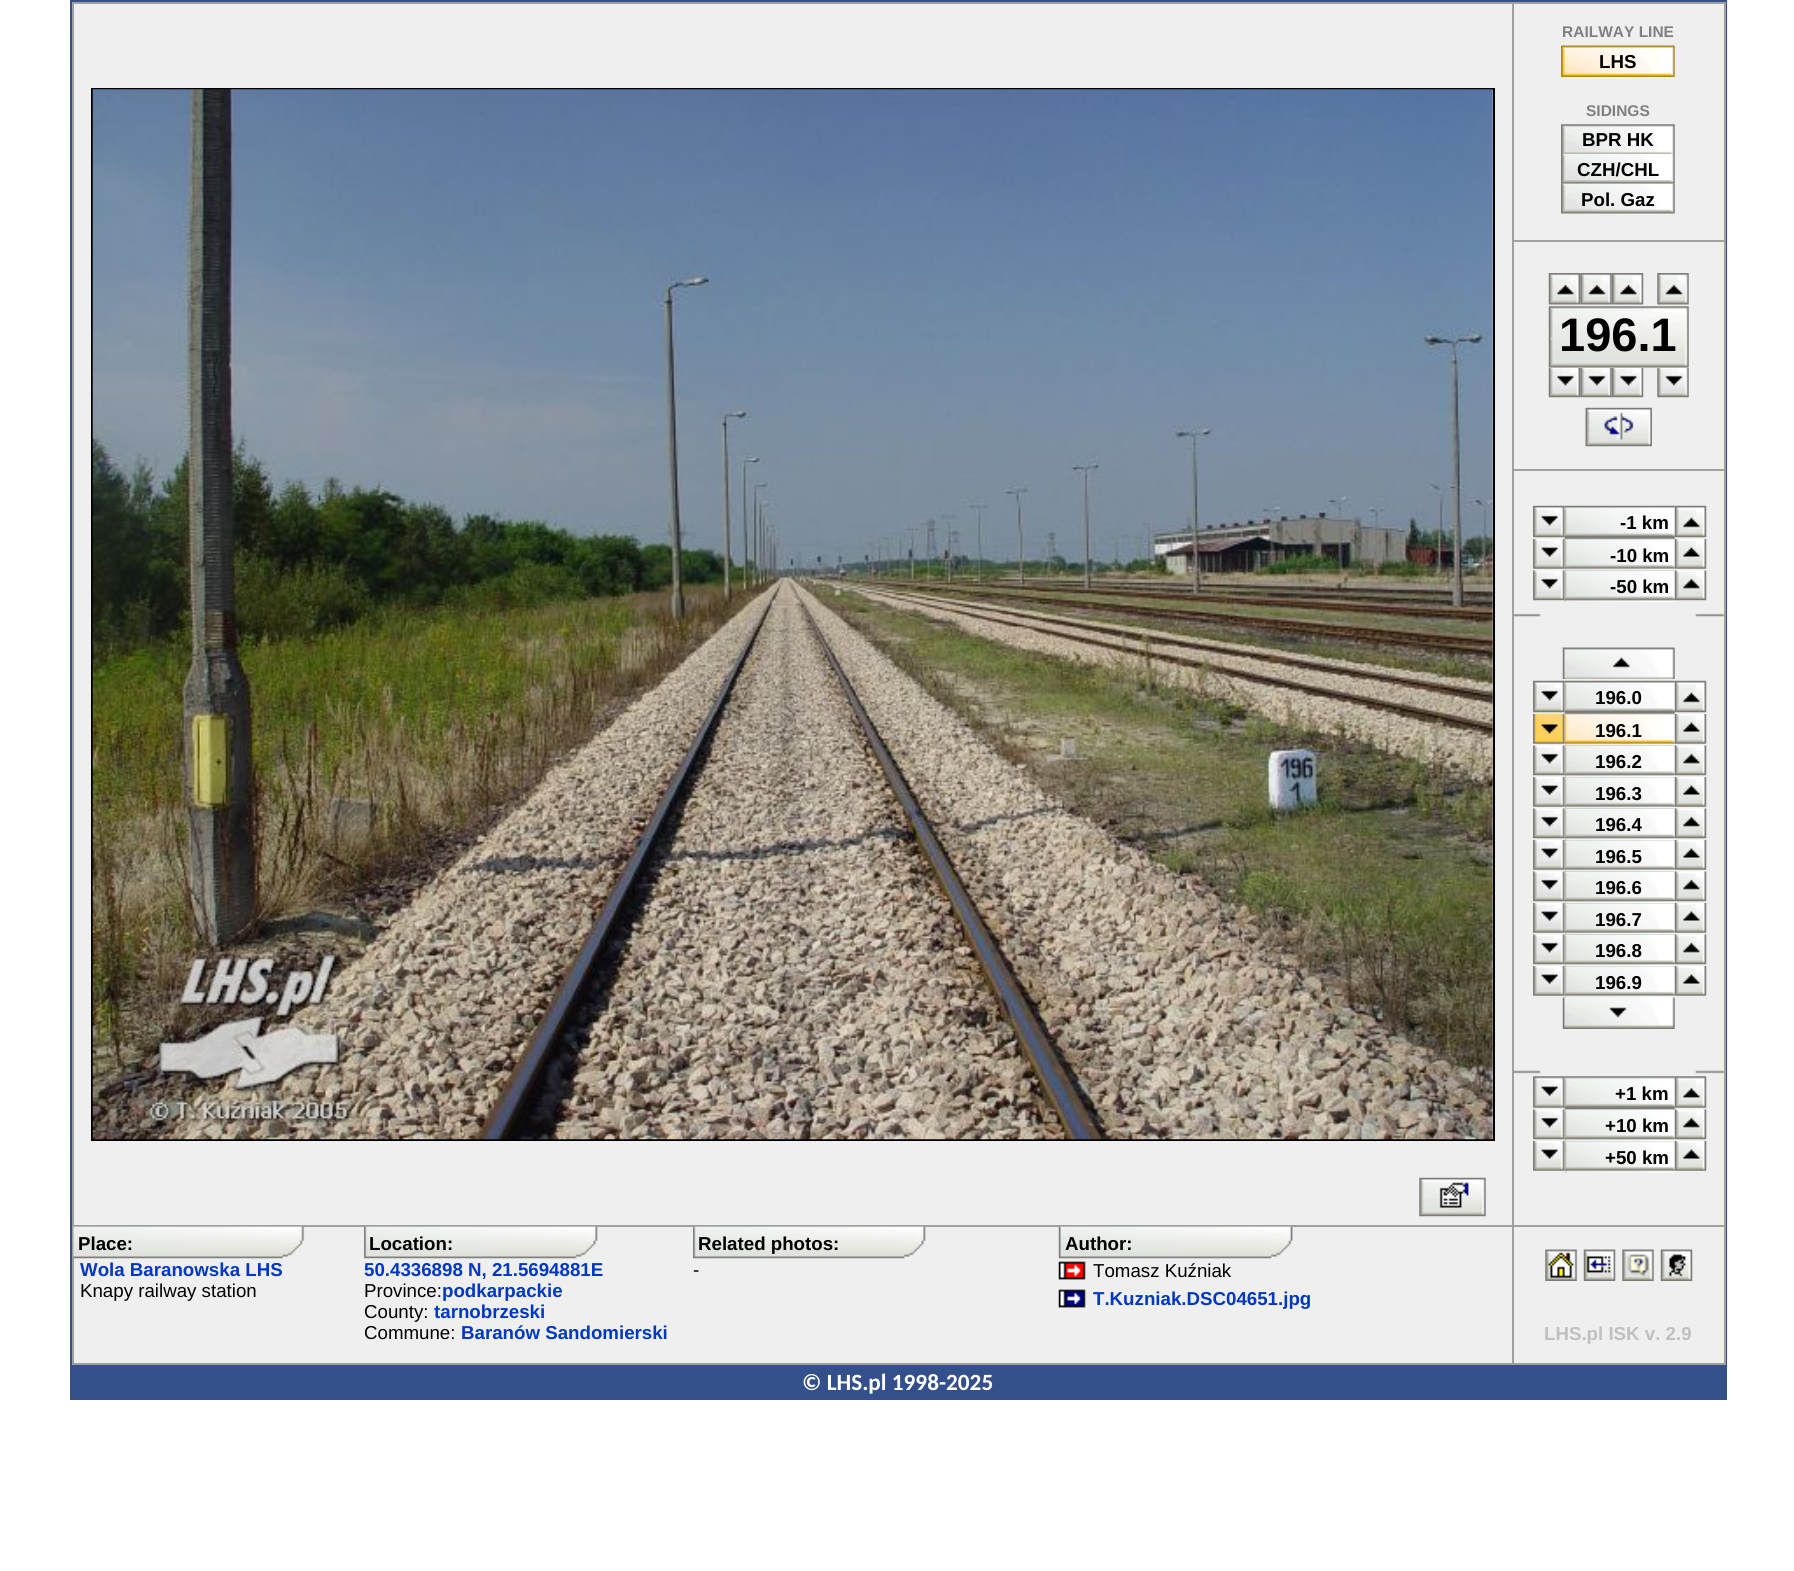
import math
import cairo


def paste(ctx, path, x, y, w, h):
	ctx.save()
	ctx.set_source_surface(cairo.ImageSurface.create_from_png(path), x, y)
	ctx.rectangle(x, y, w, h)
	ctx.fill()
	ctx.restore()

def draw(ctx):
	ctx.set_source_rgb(1, 1, 1)
	ctx.paint()
	ctx.set_source_rgb(0.204, 0.314, 0.549)
	ctx.rectangle(70, 0, 1657, 1400)
	ctx.fill()
	ctx.set_source_rgb(0.627, 0.627, 0.627)
	ctx.rectangle(72, 2, 1654, 1363)
	ctx.fill()
	ctx.set_source_rgb(0.937, 0.937, 0.937)
	ctx.rectangle(74, 4, 1438, 1221)
	ctx.fill()
	ctx.rectangle(92, 89, 1402, 1051)
	ctx.set_source_rgb(0, 0, 0)
	ctx.stroke()
	paste(ctx, 'media/1.png', 92, 89, 1401, 1051)
	ctx.set_source_rgb(0.937, 0.937, 0.937)
	ctx.rectangle(1514, 4, 210, 236)
	ctx.fill()
	ctx.select_font_face('Liberation Sans', cairo.FONT_SLANT_NORMAL, cairo.FONT_WEIGHT_BOLD)
	ctx.set_font_size(15.5)
	ctx.set_source_rgb(0.502, 0.502, 0.502)
	ctx.move_to(1562, 37)
	ctx.show_text('RAILWAY LINE')
	paste(ctx, 'media/2.png', 1561, 45, 114, 32)
	ctx.set_font_size(18.7)
	ctx.set_source_rgb(0, 0, 0)
	ctx.move_to(1599, 68)
	ctx.show_text('LHS')
	ctx.set_font_size(15.5)
	ctx.set_source_rgb(0.502, 0.502, 0.502)
	ctx.move_to(1586, 116)
	ctx.show_text('SIDINGS')
	paste(ctx, 'media/3.png', 1561, 124, 114, 30)
	ctx.set_font_size(18.7)
	ctx.set_source_rgb(0, 0, 0)
	ctx.move_to(1582, 146)
	ctx.show_text('BPR HK')
	paste(ctx, 'media/4.png', 1561, 154, 114, 30)
	ctx.move_to(1577, 176)
	ctx.show_text('CZH/CHL')
	paste(ctx, 'media/5.png', 1561, 183, 114, 31)
	ctx.move_to(1581, 206)
	ctx.show_text('Pol. Gaz')
	ctx.set_source_rgb(0.937, 0.937, 0.937)
	ctx.rectangle(1514, 242, 210, 227)
	ctx.fill()
	paste(ctx, 'media/6.png', 1548, 273, 33, 32)
	paste(ctx, 'media/7.png', 1580, 273, 32, 32)
	paste(ctx, 'media/8.png', 1611, 273, 33, 32)
	paste(ctx, 'media/9.png', 1657, 273, 32, 32)
	paste(ctx, 'media/11.png', 1548, 367, 33, 31)
	ctx.rectangle(1549, 367, 32, 1)
	ctx.fill()
	paste(ctx, 'media/10.png', 1548, 306, 141, 62)
	ctx.set_font_size(47)
	ctx.set_source_rgb(0, 0, 0)
	ctx.move_to(1559, 351)
	ctx.show_text('196.1')
	paste(ctx, 'media/12.png', 1580, 368, 32, 30)
	paste(ctx, 'media/13.png', 1611, 368, 33, 30)
	paste(ctx, 'media/14.png', 1657, 368, 32, 30)
	paste(ctx, 'media/15.png', 1585, 407, 67, 40)
	ctx.set_source_rgb(0.937, 0.937, 0.937)
	ctx.rectangle(1514, 471, 210, 754)
	ctx.fill()
	paste(ctx, 'media/17.png', 1564, 505, 111, 34)
	paste(ctx, 'media/16.png', 1533, 505, 32, 33)
	ctx.set_font_size(18.7)
	ctx.set_source_rgb(0, 0, 0)
	ctx.move_to(1620, 529)
	ctx.show_text('-1 km')
	paste(ctx, 'media/18.png', 1674, 505, 33, 33)
	paste(ctx, 'media/20.png', 1564, 539, 111, 32)
	paste(ctx, 'media/19.png', 1533, 539, 32, 30)
	ctx.move_to(1610, 562)
	ctx.show_text('-10 km')
	paste(ctx, 'media/21.png', 1674, 539, 33, 30)
	paste(ctx, 'media/23.png', 1564, 570, 111, 32)
	paste(ctx, 'media/22.png', 1533, 570, 32, 31)
	ctx.move_to(1610, 593)
	ctx.show_text('-50 km')
	paste(ctx, 'media/24.png', 1674, 570, 33, 31)
	paste(ctx, 'media/25.png', 1513, 613, 211, 4)
	paste(ctx, 'media/26.png', 1562, 647, 113, 32)
	paste(ctx, 'media/27.png', 1564, 680, 111, 34)
	paste(ctx, 'media/16.png', 1533, 680, 32, 33)
	ctx.move_to(1595, 704)
	ctx.show_text('196.0')
	paste(ctx, 'media/18.png', 1674, 680, 33, 33)
	paste(ctx, 'media/29.png', 1564, 714, 111, 32)
	paste(ctx, 'media/28.png', 1533, 714, 32, 30)
	ctx.move_to(1595, 737)
	ctx.show_text('196.1')
	paste(ctx, 'media/30.png', 1674, 714, 33, 30)
	paste(ctx, 'media/32.png', 1564, 745, 111, 32)
	paste(ctx, 'media/31.png', 1533, 745, 32, 31)
	ctx.move_to(1595, 768)
	ctx.show_text('196.2')
	paste(ctx, 'media/24.png', 1674, 745, 33, 31)
	paste(ctx, 'media/20.png', 1564, 777, 111, 32)
	paste(ctx, 'media/19.png', 1533, 777, 32, 30)
	ctx.move_to(1595, 800)
	ctx.show_text('196.3')
	paste(ctx, 'media/21.png', 1674, 777, 33, 30)
	paste(ctx, 'media/33.png', 1564, 808, 111, 32)
	paste(ctx, 'media/22.png', 1533, 808, 32, 31)
	ctx.move_to(1595, 831)
	ctx.show_text('196.4')
	paste(ctx, 'media/24.png', 1674, 808, 33, 31)
	paste(ctx, 'media/34.png', 1564, 840, 111, 32)
	paste(ctx, 'media/19.png', 1533, 840, 32, 30)
	ctx.move_to(1595, 863)
	ctx.show_text('196.5')
	paste(ctx, 'media/21.png', 1674, 840, 33, 30)
	paste(ctx, 'media/35.png', 1564, 871, 111, 32)
	paste(ctx, 'media/22.png', 1533, 871, 32, 31)
	ctx.move_to(1595, 894)
	ctx.show_text('196.6')
	paste(ctx, 'media/24.png', 1674, 871, 33, 31)
	paste(ctx, 'media/36.png', 1564, 903, 111, 32)
	paste(ctx, 'media/19.png', 1533, 903, 32, 30)
	ctx.move_to(1595, 926)
	ctx.show_text('196.7')
	paste(ctx, 'media/21.png', 1674, 903, 33, 30)
	paste(ctx, 'media/37.png', 1564, 934, 111, 32)
	paste(ctx, 'media/22.png', 1533, 934, 32, 31)
	ctx.move_to(1595, 957)
	ctx.show_text('196.8')
	paste(ctx, 'media/24.png', 1674, 934, 33, 31)
	paste(ctx, 'media/20.png', 1564, 966, 111, 32)
	paste(ctx, 'media/19.png', 1533, 966, 32, 30)
	ctx.move_to(1595, 989)
	ctx.show_text('196.9')
	paste(ctx, 'media/21.png', 1674, 966, 33, 30)
	paste(ctx, 'media/38.png', 1562, 997, 113, 32)
	paste(ctx, 'media/39.png', 1513, 1070, 211, 4)
	paste(ctx, 'media/41.png', 1564, 1076, 111, 34)
	paste(ctx, 'media/40.png', 1533, 1076, 32, 32)
	ctx.move_to(1615, 1100)
	ctx.show_text('+1 km')
	paste(ctx, 'media/42.png', 1674, 1076, 33, 32)
	paste(ctx, 'media/44.png', 1564, 1109, 111, 32)
	paste(ctx, 'media/43.png', 1533, 1109, 32, 31)
	ctx.move_to(1605, 1132)
	ctx.show_text('+10 km')
	paste(ctx, 'media/45.png', 1674, 1109, 33, 31)
	paste(ctx, 'media/46.png', 1564, 1141, 111, 32)
	paste(ctx, 'media/19.png', 1533, 1141, 32, 30)
	ctx.move_to(1605, 1164)
	ctx.show_text('+50 km')
	paste(ctx, 'media/21.png', 1674, 1141, 33, 30)
	ctx.set_source_rgb(0.937, 0.937, 0.937)
	ctx.rectangle(74, 1227, 1438, 136)
	ctx.fill()
	paste(ctx, 'media/47.png', 73, 1226, 232, 33)
	ctx.set_source_rgb(0, 0, 0)
	ctx.move_to(78, 1250)
	ctx.show_text('Place:')
	paste(ctx, 'media/48.png', 364, 1226, 234, 33)
	ctx.move_to(369, 1250)
	ctx.show_text('Location:')
	paste(ctx, 'media/49.png', 693, 1226, 233, 33)
	ctx.move_to(698, 1250)
	ctx.show_text('Related photos:')
	paste(ctx, 'media/50.png', 1058, 1226, 235, 33)
	ctx.move_to(1065, 1250)
	ctx.show_text('Author:')
	paste(ctx, 'media/51.png', 1419, 1177, 67, 40)
	ctx.set_source_rgb(0, 0.22, 0.765)
	ctx.move_to(80, 1276)
	ctx.show_text('Wola Baranowska LHS')
	ctx.select_font_face('Liberation Sans')
	ctx.set_source_rgb(0, 0, 0)
	ctx.move_to(80, 1297)
	ctx.show_text('Knapy railway station')
	ctx.select_font_face('Liberation Sans', cairo.FONT_SLANT_NORMAL, cairo.FONT_WEIGHT_BOLD)
	ctx.set_source_rgb(0, 0.22, 0.765)
	ctx.move_to(364, 1276)
	ctx.show_text('50.4336898 N, 21.5694881E')
	ctx.select_font_face('Liberation Sans')
	ctx.set_source_rgb(0, 0, 0)
	ctx.move_to(364, 1297)
	ctx.show_text('Province:')
	ctx.select_font_face('Liberation Sans', cairo.FONT_SLANT_NORMAL, cairo.FONT_WEIGHT_BOLD)
	ctx.set_source_rgb(0, 0.22, 0.765)
	ctx.move_to(442, 1297)
	ctx.show_text('podkarpackie')
	ctx.select_font_face('Liberation Sans')
	ctx.set_source_rgb(0, 0, 0)
	ctx.move_to(364, 1318)
	ctx.show_text('County:')
	ctx.select_font_face('Liberation Sans', cairo.FONT_SLANT_NORMAL, cairo.FONT_WEIGHT_BOLD)
	ctx.set_source_rgb(0, 0.22, 0.765)
	ctx.move_to(434, 1318)
	ctx.show_text('tarnobrzeski')
	ctx.select_font_face('Liberation Sans')
	ctx.set_source_rgb(0, 0, 0)
	ctx.move_to(364, 1339)
	ctx.show_text('Commune:')
	ctx.select_font_face('Liberation Sans', cairo.FONT_SLANT_NORMAL, cairo.FONT_WEIGHT_BOLD)
	ctx.set_source_rgb(0, 0.22, 0.765)
	ctx.move_to(461, 1339)
	ctx.show_text('Baranów Sandomierski')
	ctx.select_font_face('Liberation Sans')
	ctx.set_source_rgb(0, 0, 0)
	ctx.move_to(693, 1276)
	ctx.show_text('-')
	paste(ctx, 'media/52.png', 1058, 1261, 28, 19)
	ctx.move_to(1093, 1277)
	ctx.show_text('Tomasz Kuźniak')
	paste(ctx, 'media/53.png', 1058, 1289, 28, 19)
	ctx.select_font_face('Liberation Sans', cairo.FONT_SLANT_NORMAL, cairo.FONT_WEIGHT_BOLD)
	ctx.set_source_rgb(0, 0.22, 0.765)
	ctx.move_to(1093, 1305)
	ctx.show_text('T.Kuzniak.DSC04651.jpg')
	ctx.set_source_rgb(0.937, 0.937, 0.937)
	ctx.rectangle(1514, 1227, 210, 136)
	ctx.fill()
	paste(ctx, 'media/54.png', 1545, 1249, 32, 32)
	paste(ctx, 'media/55.png', 1583, 1249, 33, 32)
	paste(ctx, 'media/56.png', 1622, 1249, 32, 32)
	paste(ctx, 'media/57.png', 1660, 1249, 33, 32)
	ctx.set_source_rgb(0.753, 0.753, 0.753)
	ctx.move_to(1544, 1340)
	ctx.show_text('LHS.pl ISK v. 2.9')
	ctx.select_font_face('Carlito', cairo.FONT_SLANT_NORMAL, cairo.FONT_WEIGHT_BOLD)
	ctx.set_font_size(23.25)
	ctx.set_source_rgb(1, 1, 1)
	ctx.move_to(802, 1390)
	ctx.show_text('© LHS.pl 1998-2025')


surface = cairo.ImageSurface(cairo.FORMAT_RGB24, 1794, 1571)
ctx = cairo.Context(surface)
options = cairo.FontOptions()
options.set_hint_metrics(cairo.HINT_METRICS_OFF)
options.set_hint_style(cairo.HINT_STYLE_NONE)
ctx.set_font_options(options)
ctx.set_miter_limit(4)
draw(ctx)
surface.write_to_png('image.png')
